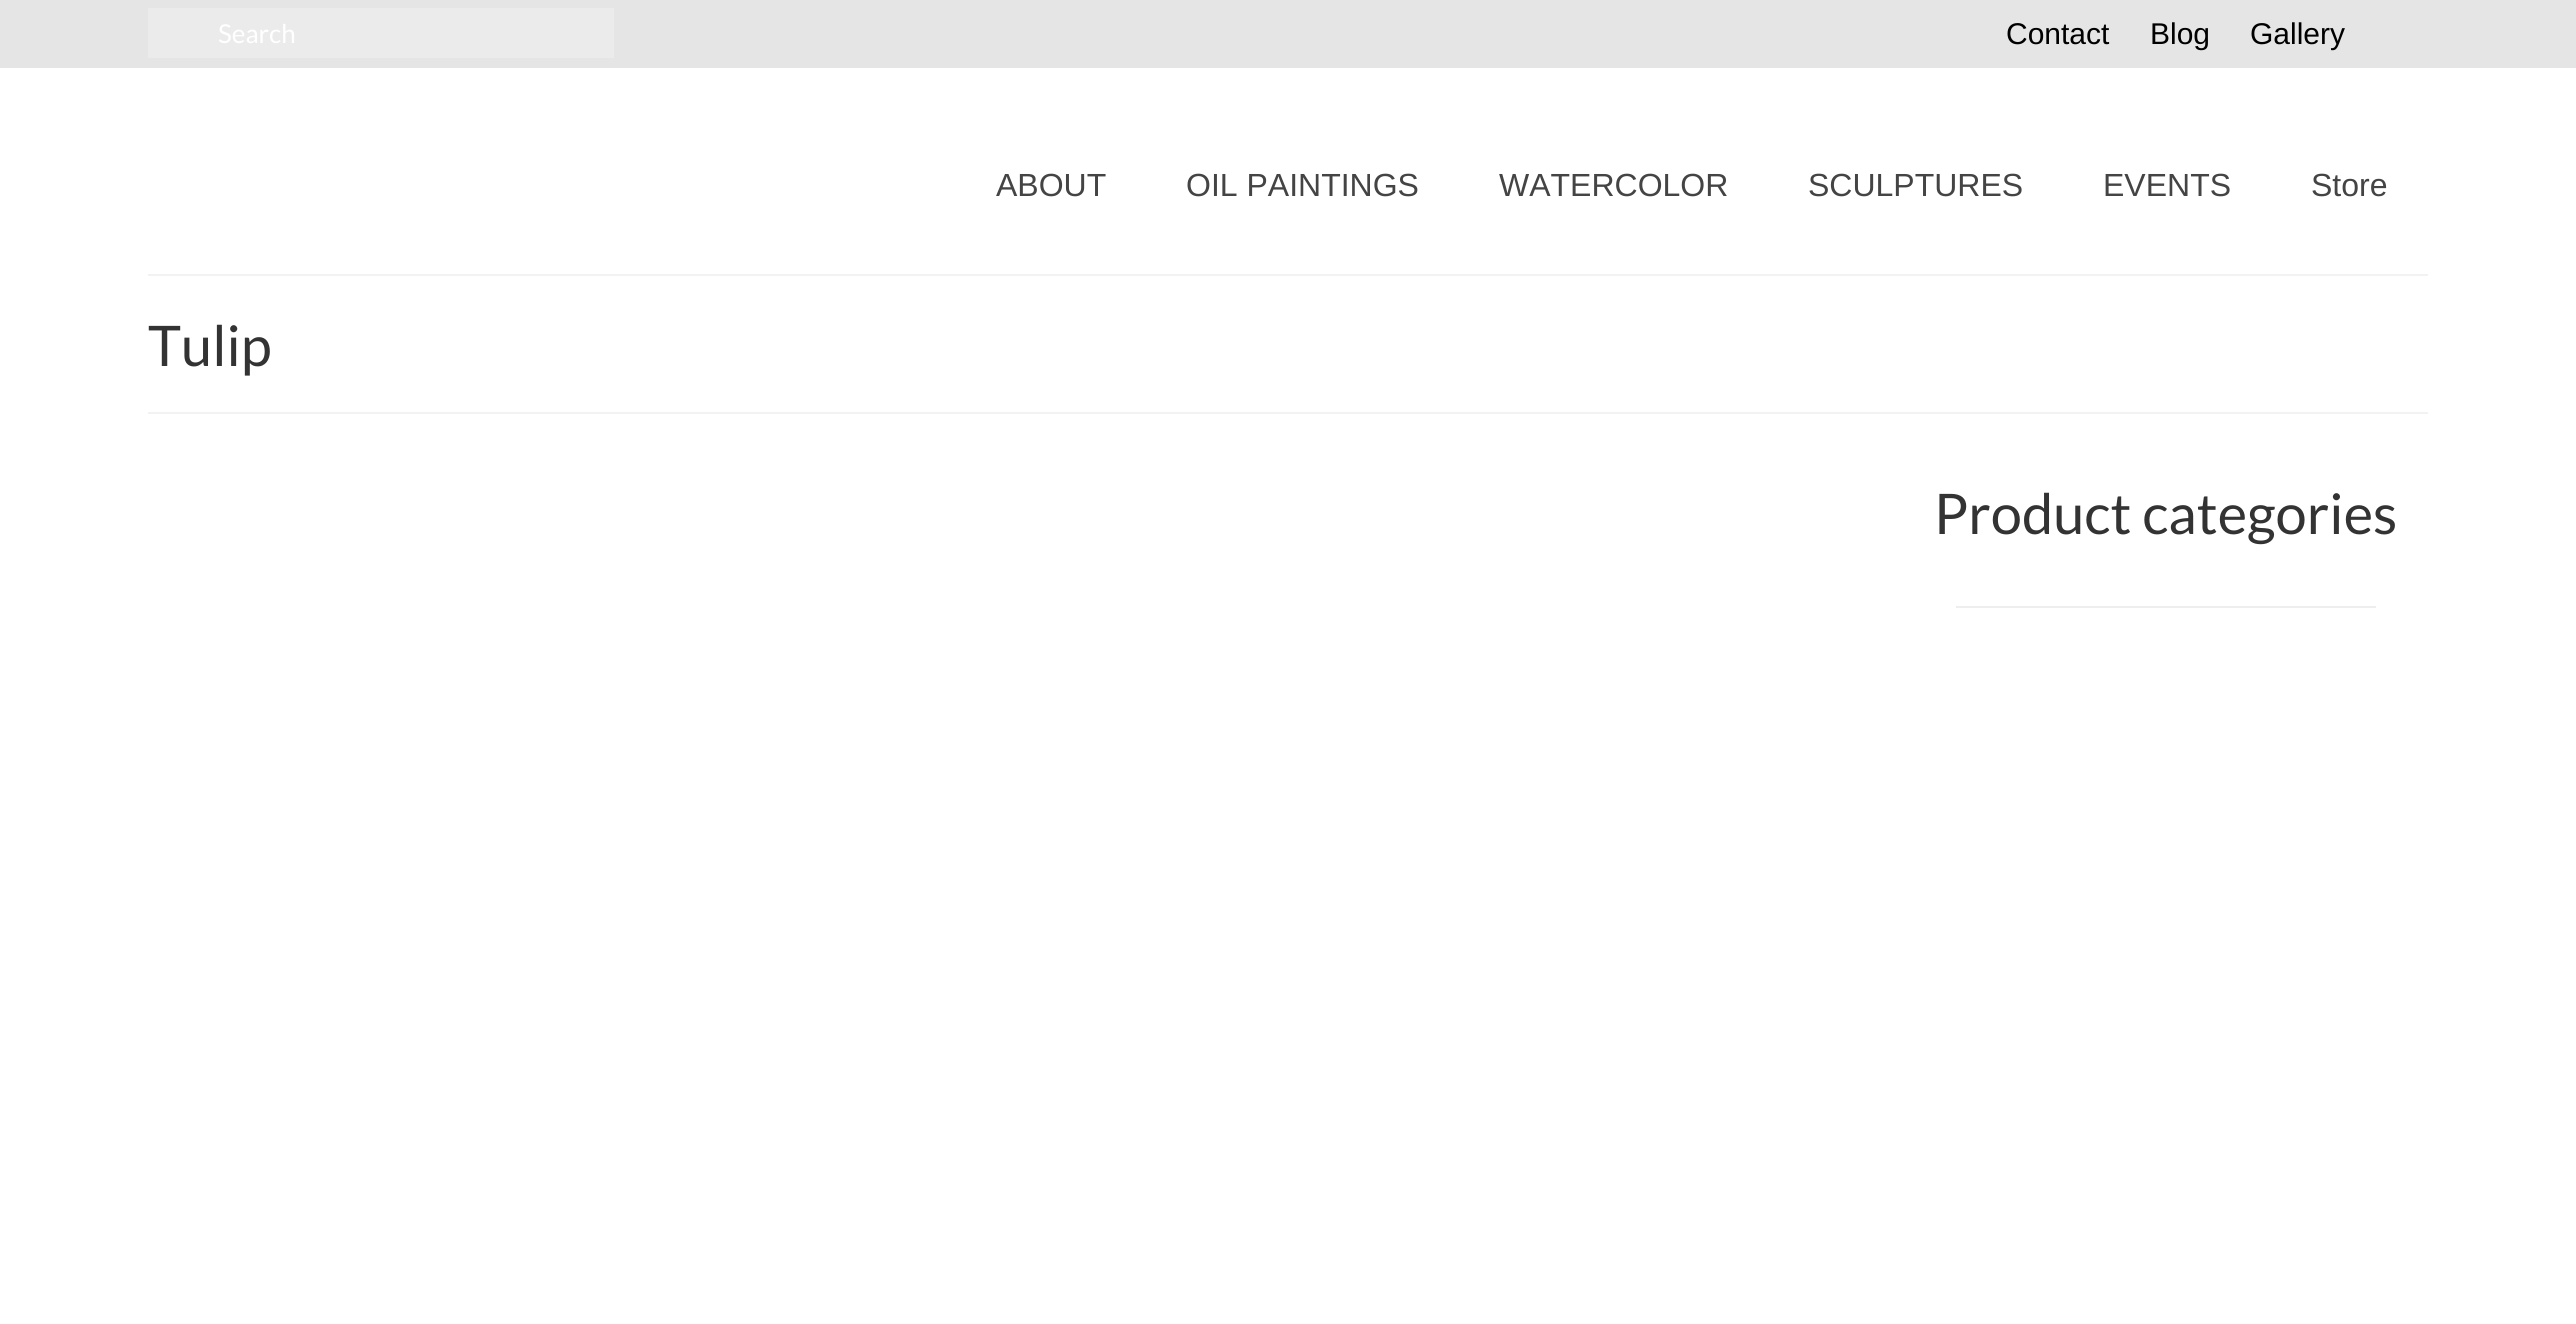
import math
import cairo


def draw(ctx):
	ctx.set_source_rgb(1, 1, 1)
	ctx.paint()
	ctx.set_source_rgb(0.898, 0.898, 0.898)
	ctx.rectangle(0, 0, 2576, 68)
	ctx.fill()
	ctx.set_source_rgb(0.918, 0.918, 0.918)
	ctx.rectangle(148, 8, 466, 50)
	ctx.fill()
	ctx.select_font_face('Lato')
	ctx.set_font_size(26)
	ctx.set_source_rgb(1, 1, 1)
	ctx.move_to(218, 43)
	ctx.show_text('Search')
	ctx.select_font_face('Liberation Sans')
	ctx.set_font_size(30)
	ctx.set_source_rgb(0, 0, 0)
	for x, y, s in [
		(2006, 44, 'Contact'),
		(2150, 44, 'Blog'),
		(2250, 44, 'Gallery'),
	]:
		ctx.move_to(x, y)
		ctx.show_text(s)
	ctx.set_font_size(32)
	ctx.set_source_rgb(0.267, 0.267, 0.267)
	for x, y, s in [
		(996, 196, 'ABOUT'),
		(1186, 196, 'OIL PAINTINGS'),
		(1499, 196, 'WATERCOLOR'),
		(1808, 196, 'SCULPTURES'),
		(2103, 196, 'EVENTS'),
		(2311, 196, 'Store'),
	]:
		ctx.move_to(x, y)
		ctx.show_text(s)
	ctx.set_source_rgb(0.949, 0.949, 0.949)
	ctx.rectangle(148, 274, 2280, 2)
	ctx.fill()
	ctx.rectangle(148, 412, 2280, 2)
	ctx.fill()
	ctx.select_font_face('Lato')
	ctx.set_font_size(56)
	ctx.set_source_rgb(0.2, 0.2, 0.2)
	ctx.move_to(148, 366)
	ctx.show_text('Tulip')
	ctx.move_to(1934, 534)
	ctx.show_text('Product categories')
	ctx.set_source_rgb(0.933, 0.933, 0.933)
	ctx.rectangle(1956, 606, 420, 2)
	ctx.fill()


surface = cairo.ImageSurface(cairo.FORMAT_RGB24, 2576, 1324)
ctx = cairo.Context(surface)
options = cairo.FontOptions()
options.set_hint_metrics(cairo.HINT_METRICS_OFF)
options.set_hint_style(cairo.HINT_STYLE_NONE)
ctx.set_font_options(options)
ctx.set_miter_limit(4)
draw(ctx)
surface.write_to_png('image.png')
